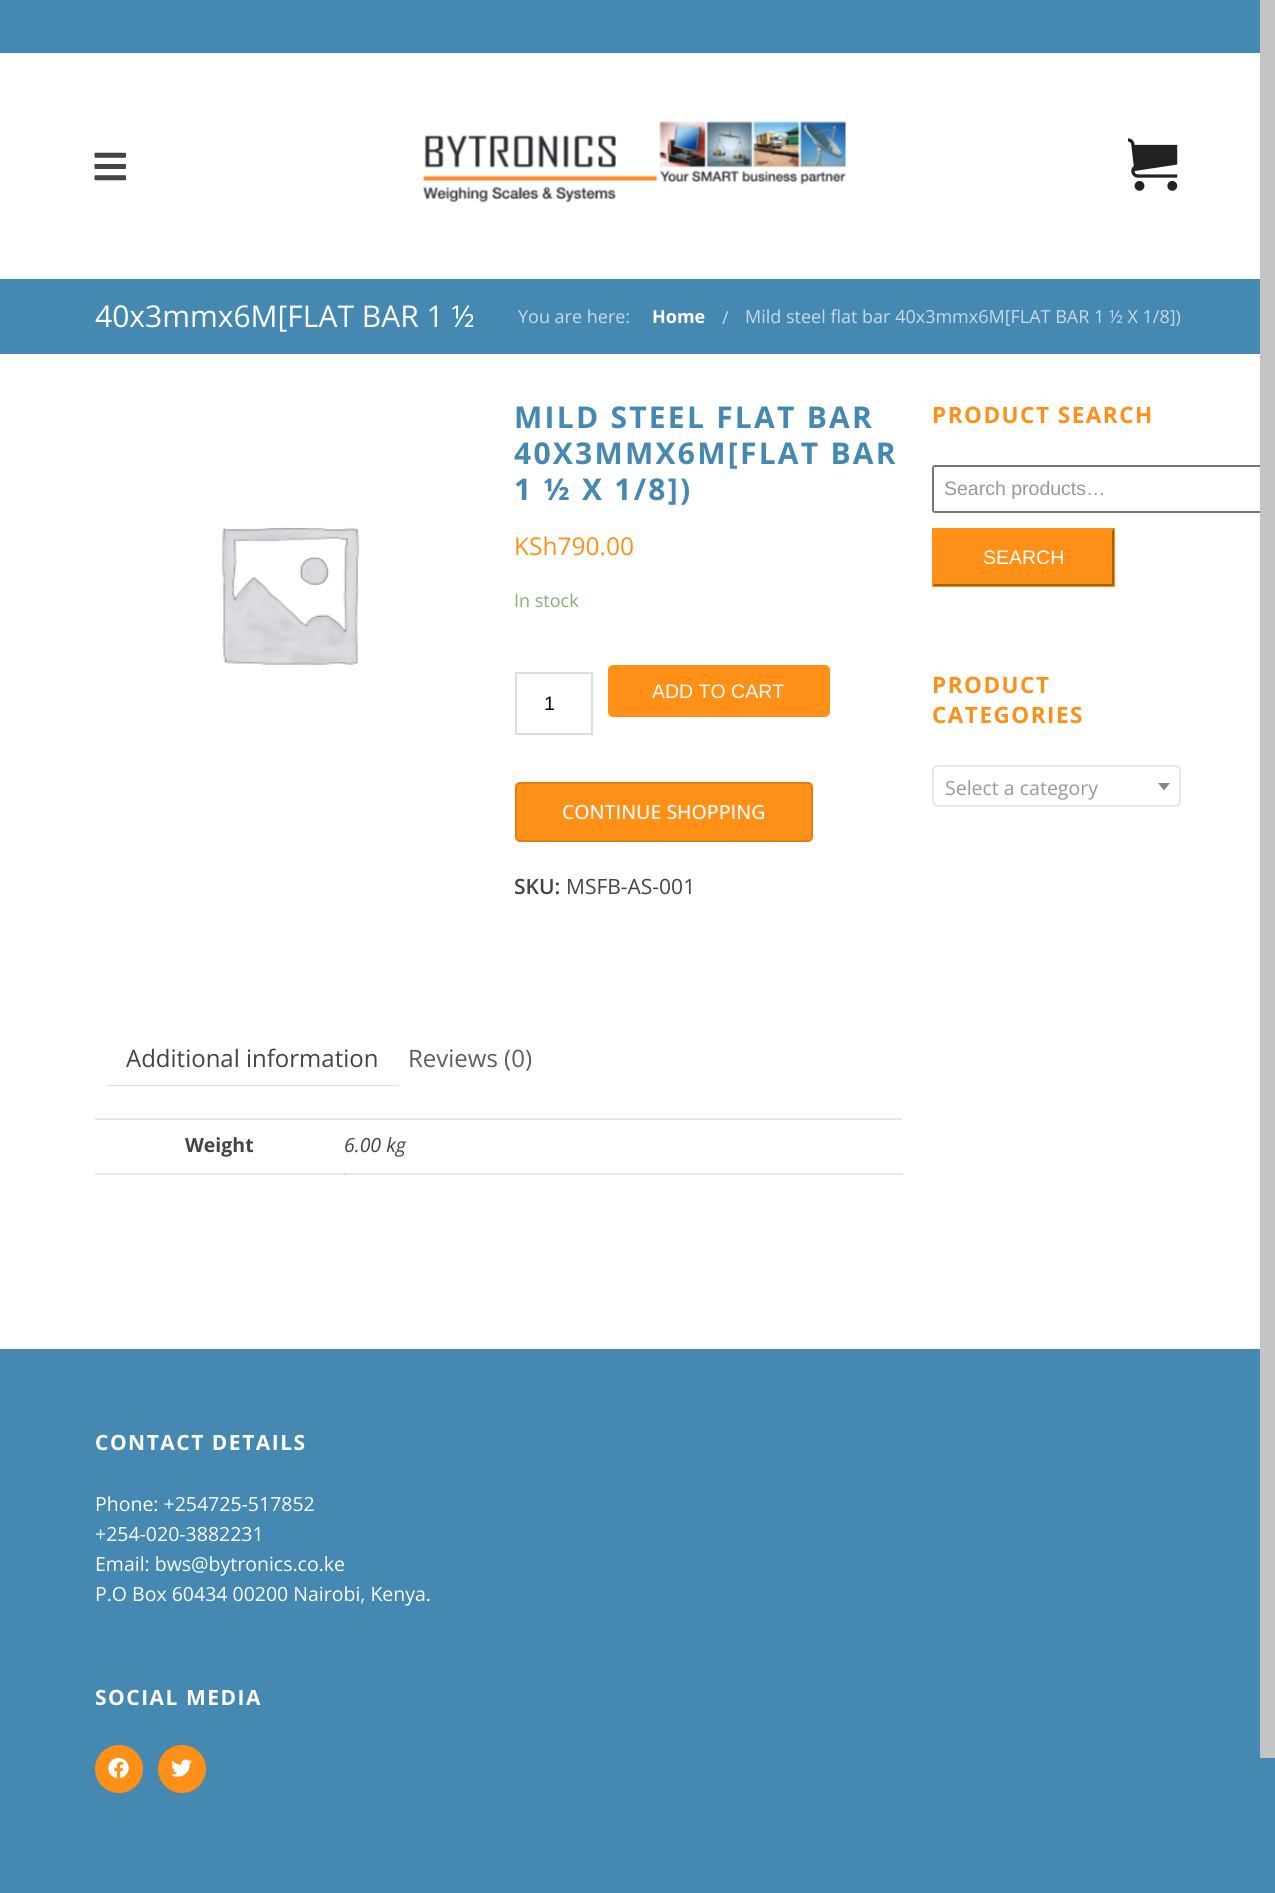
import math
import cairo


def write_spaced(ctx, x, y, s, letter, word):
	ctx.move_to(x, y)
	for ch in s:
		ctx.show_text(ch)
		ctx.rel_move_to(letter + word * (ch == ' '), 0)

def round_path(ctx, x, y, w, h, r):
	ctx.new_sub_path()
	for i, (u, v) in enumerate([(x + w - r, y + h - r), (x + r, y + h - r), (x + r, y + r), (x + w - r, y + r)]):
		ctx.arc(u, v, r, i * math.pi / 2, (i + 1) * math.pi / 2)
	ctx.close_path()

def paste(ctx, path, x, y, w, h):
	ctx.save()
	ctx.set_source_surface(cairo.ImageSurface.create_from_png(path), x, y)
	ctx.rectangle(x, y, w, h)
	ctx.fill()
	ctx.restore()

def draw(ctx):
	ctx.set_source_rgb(1, 1, 1)
	ctx.paint()
	ctx.set_source_rgb(0.902, 0.902, 0.902)
	ctx.rectangle(95, 1173, 808, 2)
	ctx.fill()
	ctx.set_source_rgb(0.271, 0.533, 0.694)
	ctx.rectangle(0, 0, 1260, 53)
	ctx.fill()
	paste(ctx, 'media/1.png', 94, 152, 32, 29)
	paste(ctx, 'media/2.png', 422, 121, 424, 82)
	paste(ctx, 'media/3.png', 1128, 138, 50, 53)
	ctx.rectangle(0, 279, 1260, 75)
	ctx.fill()
	ctx.select_font_face('Open Sans')
	ctx.set_font_size(30)
	ctx.set_source_rgb(1, 1, 1)
	ctx.move_to(95, 327)
	ctx.show_text('40x3mmx6M[FLAT BAR 1 ½')
	ctx.set_font_size(18)
	ctx.set_source_rgb(0.78, 0.859, 0.91)
	ctx.move_to(518, 323)
	ctx.show_text('You are here:')
	ctx.select_font_face('Open Sans', cairo.FONT_SLANT_NORMAL, cairo.FONT_WEIGHT_BOLD)
	ctx.set_source_rgb(1, 1, 1)
	ctx.move_to(652, 323)
	ctx.show_text('Home')
	ctx.select_font_face('Open Sans')
	ctx.set_source_rgb(0.78, 0.859, 0.91)
	ctx.move_to(722, 324)
	ctx.show_text('/')
	ctx.move_to(745, 323)
	ctx.show_text('Mild steel flat bar 40x3mmx6M[FLAT BAR 1 ½ X 1/8])')
	paste(ctx, 'media/4.png', 222, 527, 138, 138)
	ctx.select_font_face('Open Sans', cairo.FONT_SLANT_NORMAL, cairo.FONT_WEIGHT_BOLD)
	ctx.set_font_size(30)
	ctx.set_source_rgb(0.271, 0.533, 0.694)
	for x, y, s in [
		(514, 428, 'MILD STEEL FLAT BAR'),
		(514, 464, '40X3MMX6M[FLAT BAR'),
		(514, 500, '1 ½ X 1/8])'),
	]:
		write_spaced(ctx, x, y, s, 2.25, 0)
	ctx.select_font_face('Open Sans')
	ctx.set_font_size(24.5)
	ctx.set_source_rgb(1, 0.565, 0.09)
	ctx.move_to(514, 555)
	ctx.show_text('KSh790.00')
	ctx.set_font_size(18)
	ctx.set_source_rgb(0.522, 0.678, 0.455)
	ctx.move_to(514, 607)
	ctx.show_text('In stock')
	ctx.set_source_rgb(1, 0.565, 0.09)
	round_path(ctx, 608, 665, 222, 52, 5)
	ctx.fill()
	ctx.select_font_face('Liberation Sans')
	ctx.set_font_size(19.5)
	ctx.set_source_rgb(1, 1, 1)
	ctx.move_to(652, 698)
	ctx.show_text('ADD TO CART')
	ctx.rectangle(516, 673, 76, 61)
	ctx.set_source_rgb(0.867, 0.867, 0.867)
	ctx.stroke()
	ctx.set_source_rgb(0, 0, 0)
	ctx.move_to(544, 710)
	ctx.show_text('1')
	ctx.set_source_rgb(1, 0.565, 0.09)
	round_path(ctx, 515, 782, 298, 60, 5)
	ctx.fill()
	round_path(ctx, 516, 783, 296, 58, 4)
	ctx.set_source_rgba(0, 0, 0, 0.12)
	ctx.stroke()
	ctx.select_font_face('Open Sans Medium')
	ctx.set_source_rgb(1, 1, 1)
	ctx.move_to(562, 819)
	ctx.show_text('CONTINUE SHOPPING')
	ctx.select_font_face('Open Sans SemiBold')
	ctx.set_font_size(21)
	ctx.set_source_rgb(0.267, 0.267, 0.267)
	ctx.move_to(514, 894)
	ctx.show_text('SKU:')
	ctx.select_font_face('Open Sans')
	ctx.move_to(566, 894)
	ctx.show_text('MSFB-AS-001')
	ctx.set_source_rgb(0.867, 0.867, 0.867)
	ctx.rectangle(107, 1085, 291, 1)
	ctx.fill()
	ctx.set_font_size(24)
	ctx.set_source_rgb(0.267, 0.267, 0.267)
	ctx.move_to(126, 1067)
	ctx.show_text('Additional information')
	ctx.set_source_rgb(0.369, 0.369, 0.369)
	ctx.move_to(408, 1067)
	ctx.show_text('Reviews (0)')
	ctx.set_source_rgb(0.902, 0.902, 0.902)
	ctx.rectangle(95, 1118, 807, 2)
	ctx.fill()
	ctx.select_font_face('Open Sans', cairo.FONT_SLANT_NORMAL, cairo.FONT_WEIGHT_BOLD)
	ctx.set_font_size(19.5)
	ctx.set_source_rgb(0.267, 0.267, 0.267)
	ctx.move_to(185, 1152)
	ctx.show_text('Weight')
	ctx.set_source_rgb(0.812, 0.812, 0.812)
	ctx.rectangle(344, 1173, 1, 2)
	ctx.fill()
	ctx.select_font_face('Open Sans', cairo.FONT_SLANT_ITALIC)
	ctx.set_source_rgb(0.267, 0.267, 0.267)
	ctx.move_to(344, 1152)
	ctx.show_text('6.00 kg')
	ctx.select_font_face('Open Sans', cairo.FONT_SLANT_NORMAL, cairo.FONT_WEIGHT_BOLD)
	ctx.set_font_size(22.5)
	ctx.set_source_rgb(1, 0.565, 0.09)
	write_spaced(ctx, 932, 423, 'PRODUCT SEARCH', 1.5, 0)
	round_path(ctx, 933, 466, 331, 46, 2)
	ctx.set_source_rgb(0.463, 0.463, 0.463)
	ctx.stroke()
	ctx.select_font_face('Liberation Sans')
	ctx.set_font_size(19.5)
	ctx.set_source_rgb(0.6, 0.6, 0.6)
	ctx.move_to(944, 495)
	ctx.show_text('Search products…')
	ctx.set_source_rgb(1, 0.565, 0.09)
	ctx.rectangle(932, 528, 183, 59)
	ctx.fill()
	ctx.set_source_rgb(0.667, 0.376, 0.059)
	ctx.new_path()
	ctx.move_to(1114, 528)
	ctx.line_to(1114, 586)
	ctx.line_to(1112, 584)
	ctx.line_to(1112, 531)
	ctx.close_path()
	ctx.fill()
	ctx.new_path()
	ctx.move_to(1114, 586)
	ctx.line_to(932, 586)
	ctx.line_to(934, 584)
	ctx.line_to(1112, 584)
	ctx.close_path()
	ctx.fill()
	ctx.set_source_rgb(1, 0.565, 0.09)
	ctx.new_path()
	ctx.move_to(932, 586)
	ctx.line_to(932, 528)
	ctx.line_to(934, 531)
	ctx.line_to(934, 584)
	ctx.close_path()
	ctx.fill()
	ctx.set_source_rgb(1, 1, 1)
	ctx.move_to(983, 564)
	ctx.show_text('SEARCH')
	ctx.select_font_face('Open Sans', cairo.FONT_SLANT_NORMAL, cairo.FONT_WEIGHT_BOLD)
	ctx.set_font_size(22.5)
	ctx.set_source_rgb(1, 0.565, 0.09)
	write_spaced(ctx, 932, 693, 'PRODUCT', 1.5, 0)
	write_spaced(ctx, 932, 723, 'CATEGORIES', 1.5, 0)
	round_path(ctx, 933, 766, 247, 40, 5)
	ctx.set_source_rgb(0.906, 0.906, 0.906)
	ctx.stroke()
	ctx.select_font_face('Open Sans')
	ctx.set_font_size(19.5)
	ctx.set_source_rgb(0.6, 0.6, 0.6)
	ctx.move_to(945, 795)
	ctx.show_text('Select a category')
	ctx.set_source_rgb(0.533, 0.533, 0.533)
	ctx.new_path()
	ctx.move_to(1158, 783)
	ctx.line_to(1170, 783)
	ctx.line_to(1164, 790.5)
	ctx.close_path()
	ctx.fill()
	ctx.set_source_rgb(0.271, 0.533, 0.694)
	ctx.rectangle(0, 1349, 1260, 544)
	ctx.fill()
	ctx.select_font_face('Open Sans', cairo.FONT_SLANT_NORMAL, cairo.FONT_WEIGHT_BOLD)
	ctx.set_font_size(21)
	ctx.set_source_rgb(1, 1, 1)
	write_spaced(ctx, 95, 1450, 'CONTACT DETAILS', 1.5, 0)
	ctx.select_font_face('Open Sans')
	ctx.set_font_size(19.5)
	for x, y, s in [
		(95, 1511, 'Phone: +254725-517852'),
		(95, 1541, '+254-020-3882231'),
		(95, 1571, 'Email: bws@bytronics.co.ke'),
		(95, 1601, 'P.O Box 60434 00200 Nairobi, Kenya.'),
	]:
		ctx.move_to(x, y)
		ctx.show_text(s)
	ctx.select_font_face('Open Sans', cairo.FONT_SLANT_NORMAL, cairo.FONT_WEIGHT_BOLD)
	ctx.set_font_size(21)
	write_spaced(ctx, 95, 1705, 'SOCIAL MEDIA', 1.5, 0)
	ctx.set_source_rgb(1, 0.565, 0.09)
	ctx.new_path()
	ctx.arc(119, 1769, 24, 0, 2 * math.pi)
	ctx.fill()
	paste(ctx, 'media/5.png', 108, 1758, 21, 21)
	ctx.arc(182, 1769, 24, 0, 2 * math.pi)
	ctx.fill()
	paste(ctx, 'media/6.png', 171, 1759, 21, 18)
	ctx.set_source_rgb(0.271, 0.533, 0.694)
	ctx.rectangle(1260, 1758, 15, 135)
	ctx.fill()
	ctx.set_source_rgb(0.769, 0.769, 0.769)
	ctx.rectangle(1260, 0, 15, 1758)
	ctx.fill()


surface = cairo.ImageSurface(cairo.FORMAT_RGB24, 1275, 1893)
ctx = cairo.Context(surface)
options = cairo.FontOptions()
options.set_hint_metrics(cairo.HINT_METRICS_OFF)
options.set_hint_style(cairo.HINT_STYLE_NONE)
ctx.set_font_options(options)
ctx.set_miter_limit(4)
draw(ctx)
surface.write_to_png('image.png')
